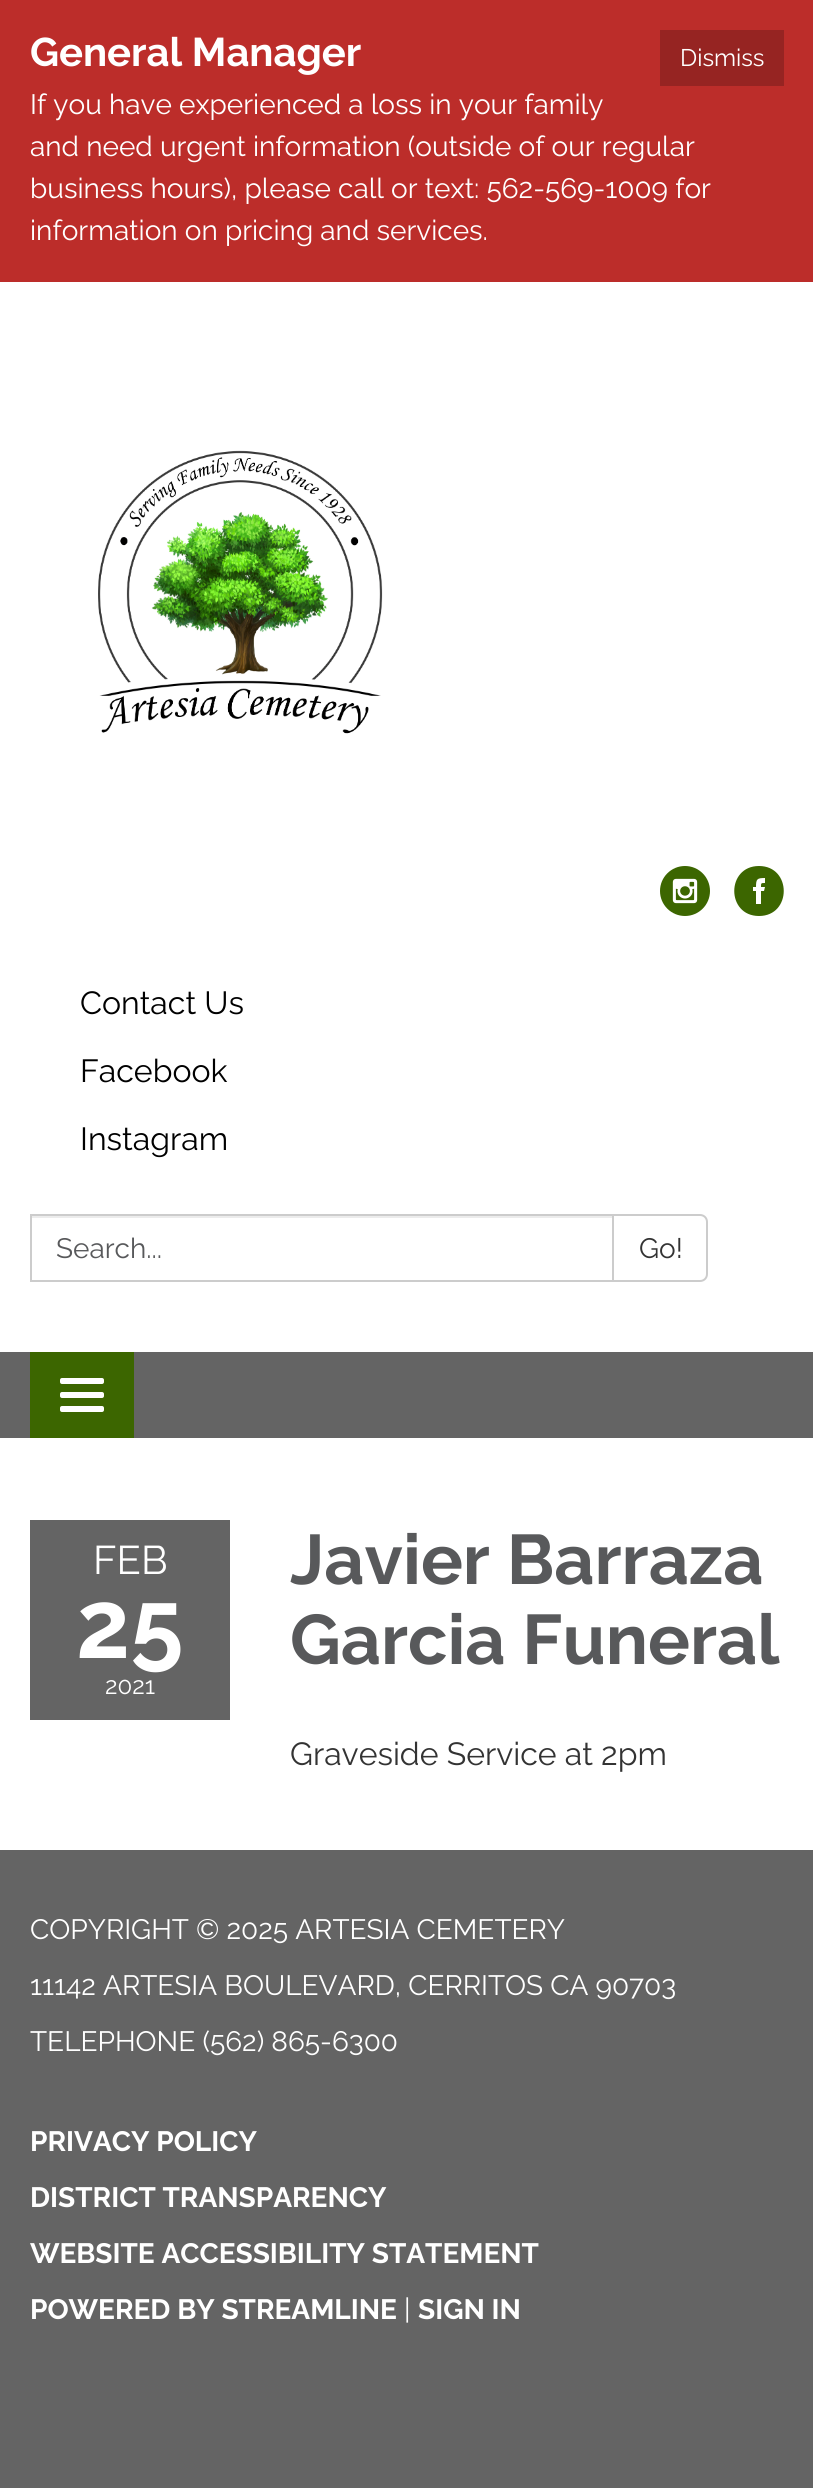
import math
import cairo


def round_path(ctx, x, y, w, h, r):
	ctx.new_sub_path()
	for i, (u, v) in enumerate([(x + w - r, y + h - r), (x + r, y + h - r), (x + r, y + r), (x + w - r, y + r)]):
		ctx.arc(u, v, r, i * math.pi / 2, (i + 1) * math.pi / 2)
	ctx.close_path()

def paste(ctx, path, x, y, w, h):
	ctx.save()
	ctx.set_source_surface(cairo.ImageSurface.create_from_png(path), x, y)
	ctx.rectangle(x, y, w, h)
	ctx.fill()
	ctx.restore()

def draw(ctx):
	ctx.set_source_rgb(0.392, 0.392, 0.392)
	ctx.paint()
	ctx.set_source_rgb(0.737, 0.176, 0.165)
	ctx.rectangle(0, 0, 813, 282)
	ctx.fill()
	ctx.select_font_face('Raleway', cairo.FONT_SLANT_NORMAL, cairo.FONT_WEIGHT_BOLD)
	ctx.set_font_size(40)
	ctx.set_source_rgb(1, 1, 1)
	ctx.move_to(30, 66)
	ctx.show_text('General Manager')
	ctx.set_source_rgb(0.588, 0.141, 0.133)
	ctx.rectangle(660, 30, 124, 56)
	ctx.fill()
	ctx.select_font_face('Raleway')
	ctx.set_font_size(24)
	ctx.set_source_rgb(1, 1, 1)
	ctx.move_to(680, 66)
	ctx.show_text('Dismiss')
	ctx.set_font_size(28)
	for x, y, s in [
		(30, 114, 'If you have experienced a loss in your family'),
		(30, 156, 'and need urgent information (outside of our regular'),
		(30, 198, 'business hours), please call or text: 562-569-1009 for'),
		(30, 240, 'information on pricing and services.'),
	]:
		ctx.move_to(x, y)
		ctx.show_text(s)
	ctx.rectangle(0, 282, 813, 1070)
	ctx.fill()
	paste(ctx, 'media/1.png', 98, 450, 285, 284)
	paste(ctx, 'media/2.png', 660, 866, 50, 50)
	ctx.set_source_rgb(0.235, 0.4, 0)
	ctx.new_path()
	ctx.move_to(759, 866)
	ctx.curve_to(726, 866, 726, 916, 759, 916)
	ctx.curve_to(792, 916, 792, 866, 759, 866)
	ctx.close_path()
	ctx.move_to(764, 891)
	ctx.line_to(761, 891)
	ctx.line_to(761, 904)
	ctx.line_to(756, 904)
	ctx.line_to(756, 891)
	ctx.line_to(753, 891)
	ctx.line_to(753, 887)
	ctx.line_to(756, 887)
	ctx.curve_to(756, 879, 757, 878, 765, 878)
	ctx.line_to(765, 883)
	ctx.curve_to(761, 883, 761, 883, 761, 887)
	ctx.line_to(765, 887)
	ctx.close_path()
	ctx.fill()
	ctx.set_font_size(32)
	ctx.set_source_rgb(0, 0, 0)
	for x, y, s in [
		(80, 1014, 'Contact Us'),
		(80, 1082, 'Facebook'),
		(80, 1150, 'Instagram'),
	]:
		ctx.move_to(x, y)
		ctx.show_text(s)
	ctx.set_source_rgb(0.925, 0.925, 0.925)
	ctx.rectangle(32, 1216, 580, 2)
	ctx.fill()
	ctx.rectangle(31, 1215, 582, 66)
	ctx.set_source_rgb(0.8, 0.8, 0.8)
	ctx.stroke()
	ctx.set_font_size(28)
	ctx.set_source_rgb(0.345, 0.349, 0.357)
	ctx.move_to(56, 1258)
	ctx.show_text('Search...')
	ctx.set_source_rgb(1, 1, 1)
	ctx.new_path()
	ctx.move_to(613, 1215)
	ctx.line_to(700, 1215)
	ctx.curve_to(704, 1215, 707, 1218, 707, 1222)
	ctx.line_to(707, 1274)
	ctx.curve_to(707, 1278, 704, 1281, 700, 1281)
	ctx.line_to(613, 1281)
	ctx.close_path()
	ctx.fill_preserve()
	ctx.set_source_rgb(0.8, 0.8, 0.8)
	ctx.stroke()
	ctx.set_source_rgb(0.2, 0.2, 0.2)
	ctx.move_to(639, 1258)
	ctx.show_text('Go!')
	ctx.set_source_rgb(0.235, 0.4, 0)
	ctx.rectangle(30, 1352, 104, 86)
	ctx.fill()
	ctx.set_source_rgb(1, 1, 1)
	round_path(ctx, 60, 1378, 44, 6, 2)
	ctx.fill()
	round_path(ctx, 60, 1392, 44, 6, 2)
	ctx.fill()
	round_path(ctx, 60, 1406, 44, 6, 2)
	ctx.fill()
	ctx.rectangle(0, 1438, 813, 412)
	ctx.fill()
	ctx.set_source_rgb(0.392, 0.392, 0.392)
	ctx.rectangle(30, 1520, 200, 200)
	ctx.fill()
	ctx.set_font_size(40)
	ctx.set_source_rgb(1, 1, 1)
	ctx.move_to(93, 1574)
	ctx.show_text('FEB')
	ctx.select_font_face('Raleway', cairo.FONT_SLANT_NORMAL, cairo.FONT_WEIGHT_BOLD)
	ctx.set_font_size(96)
	ctx.move_to(76, 1658)
	ctx.show_text('25')
	ctx.select_font_face('Raleway')
	ctx.set_font_size(24)
	ctx.move_to(105, 1694)
	ctx.show_text('2021')
	ctx.select_font_face('Raleway', cairo.FONT_SLANT_NORMAL, cairo.FONT_WEIGHT_BOLD)
	ctx.set_font_size(70)
	ctx.set_source_rgb(0.345, 0.349, 0.357)
	ctx.move_to(290, 1584)
	ctx.show_text('Javier Barraza')
	ctx.move_to(290, 1664)
	ctx.show_text('Garcia Funeral')
	ctx.select_font_face('Raleway')
	ctx.set_font_size(32)
	ctx.set_source_rgb(0.2, 0.2, 0.2)
	ctx.move_to(290, 1765)
	ctx.show_text('Graveside Service at 2pm')
	ctx.set_font_size(28)
	ctx.set_source_rgb(1, 1, 1)
	for x, y, s in [
		(30, 1939, 'COPYRIGHT © 2025 ARTESIA CEMETERY'),
		(30, 1995, '11142 ARTESIA BOULEVARD, CERRITOS CA 90703'),
		(30, 2051, 'TELEPHONE (562) 865-6300'),
	]:
		ctx.move_to(x, y)
		ctx.show_text(s)
	ctx.select_font_face('Raleway', cairo.FONT_SLANT_NORMAL, cairo.FONT_WEIGHT_BOLD)
	for x, y, s in [
		(30, 2151, 'PRIVACY POLICY'),
		(30, 2207, 'DISTRICT TRANSPARENCY'),
		(30, 2263, 'WEBSITE ACCESSIBILITY STATEMENT'),
		(30, 2319, 'POWERED BY STREAMLINE'),
	]:
		ctx.move_to(x, y)
		ctx.show_text(s)
	ctx.select_font_face('Raleway')
	ctx.move_to(404, 2319)
	ctx.show_text('|')
	ctx.select_font_face('Raleway', cairo.FONT_SLANT_NORMAL, cairo.FONT_WEIGHT_BOLD)
	ctx.move_to(418, 2319)
	ctx.show_text('SIGN IN')


surface = cairo.ImageSurface(cairo.FORMAT_RGB24, 813, 2488)
ctx = cairo.Context(surface)
options = cairo.FontOptions()
options.set_hint_metrics(cairo.HINT_METRICS_OFF)
options.set_hint_style(cairo.HINT_STYLE_NONE)
ctx.set_font_options(options)
ctx.set_miter_limit(4)
draw(ctx)
surface.write_to_png('image.png')
